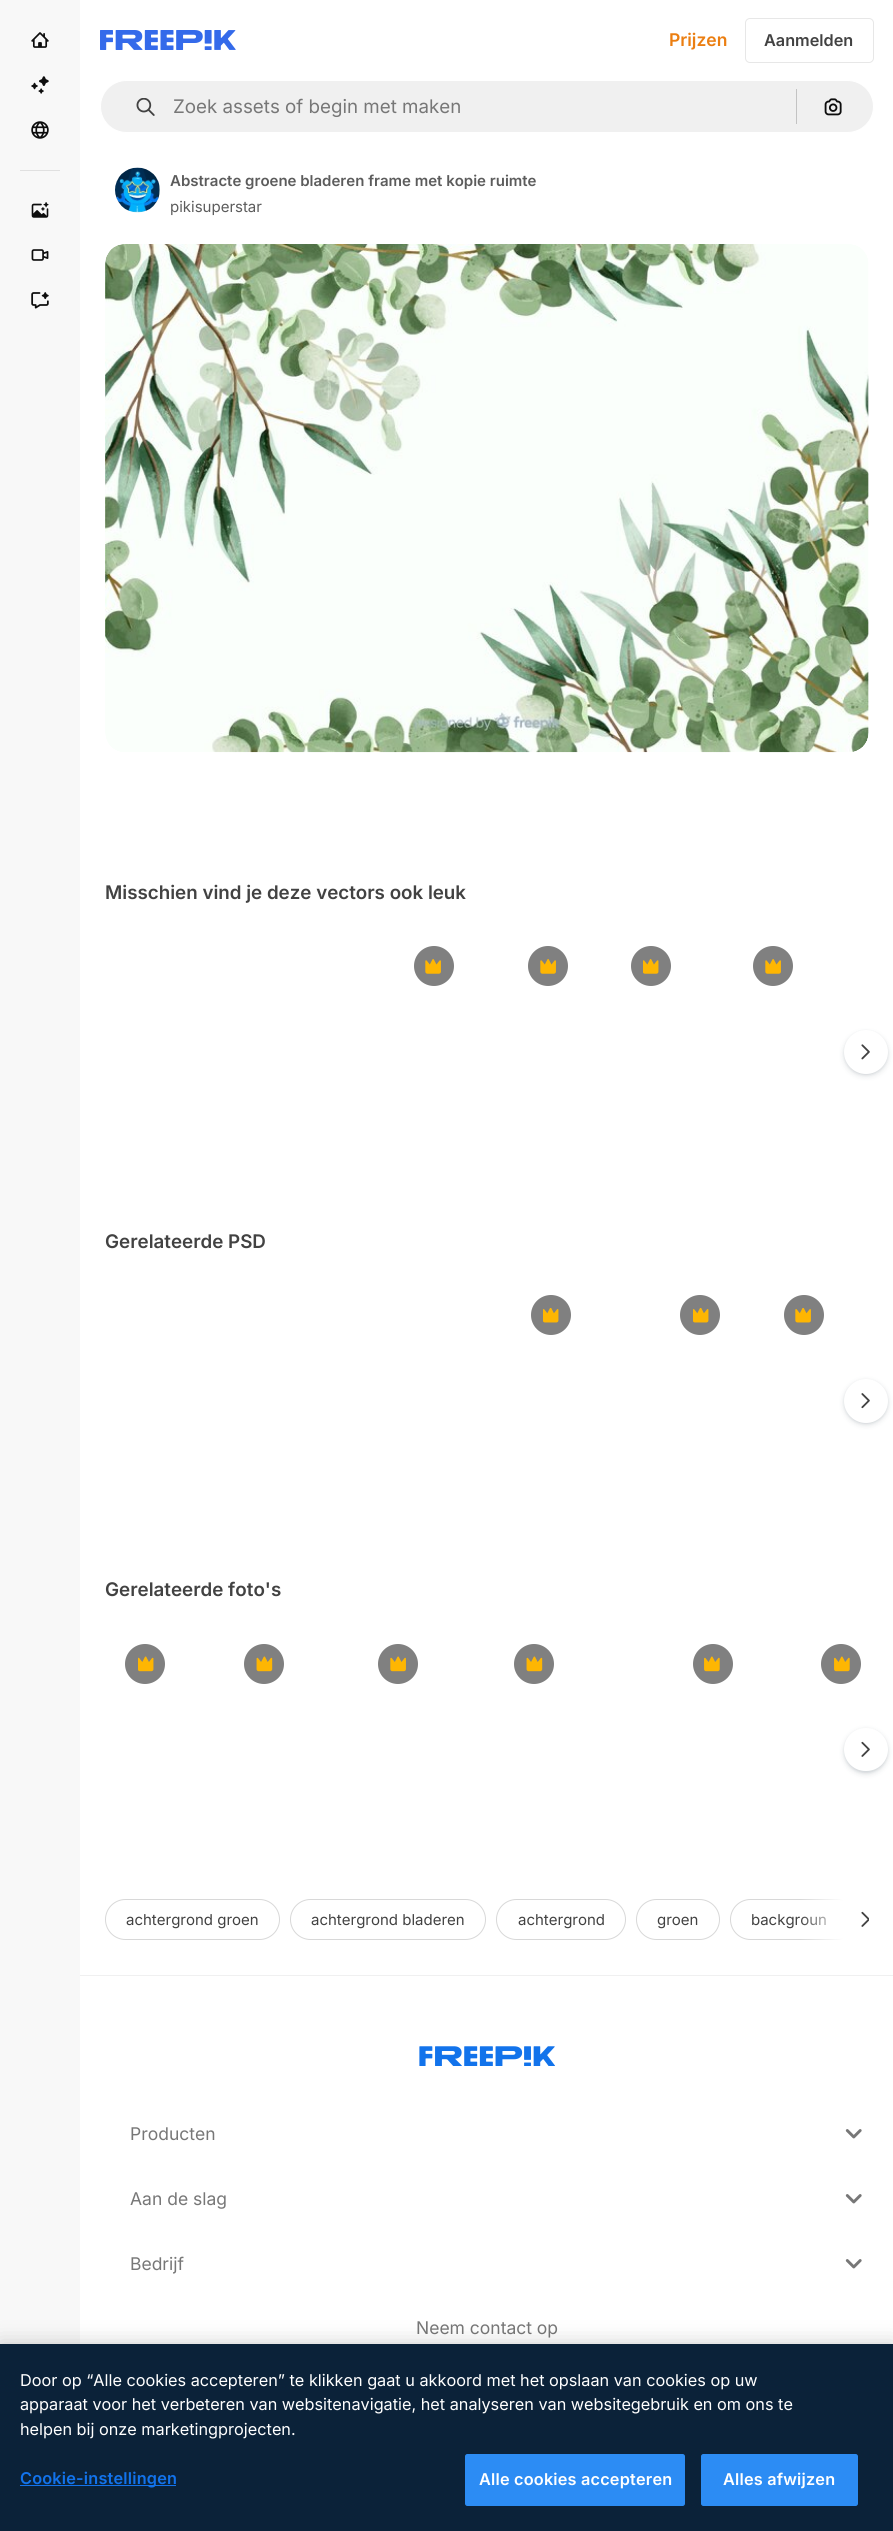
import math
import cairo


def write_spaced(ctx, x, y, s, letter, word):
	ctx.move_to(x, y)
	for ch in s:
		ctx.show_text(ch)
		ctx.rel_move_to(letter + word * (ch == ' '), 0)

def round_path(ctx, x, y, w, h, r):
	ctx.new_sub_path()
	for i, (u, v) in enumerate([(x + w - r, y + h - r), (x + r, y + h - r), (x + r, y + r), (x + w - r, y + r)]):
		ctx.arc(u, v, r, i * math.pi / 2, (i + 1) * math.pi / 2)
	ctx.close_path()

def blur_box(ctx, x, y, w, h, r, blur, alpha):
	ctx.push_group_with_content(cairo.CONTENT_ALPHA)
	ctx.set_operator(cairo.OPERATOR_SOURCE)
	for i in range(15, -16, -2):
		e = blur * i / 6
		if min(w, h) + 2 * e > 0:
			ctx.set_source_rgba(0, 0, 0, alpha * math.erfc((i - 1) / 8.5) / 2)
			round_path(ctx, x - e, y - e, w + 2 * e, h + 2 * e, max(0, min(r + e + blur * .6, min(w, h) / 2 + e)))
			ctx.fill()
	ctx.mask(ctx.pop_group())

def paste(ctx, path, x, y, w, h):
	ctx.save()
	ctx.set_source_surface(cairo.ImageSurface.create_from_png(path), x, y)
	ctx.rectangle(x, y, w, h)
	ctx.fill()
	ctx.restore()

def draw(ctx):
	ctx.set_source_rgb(1, 1, 1)
	ctx.paint()
	ctx.set_source_rgb(0.969, 0.969, 0.969)
	ctx.rectangle(0, 0, 80, 2344)
	ctx.fill()
	paste(ctx, 'media/1.png', 31, 32, 18, 16)
	paste(ctx, 'media/2.png', 31, 76, 18, 18)
	paste(ctx, 'media/3.png', 31, 121, 18, 18)
	ctx.set_source_rgb(0.878, 0.878, 0.878)
	ctx.rectangle(20, 170, 40, 1)
	ctx.fill()
	paste(ctx, 'media/4.png', 31, 202, 18, 16)
	paste(ctx, 'media/5.png', 31, 249, 18, 12)
	paste(ctx, 'media/6.png', 31, 292, 18, 17)
	paste(ctx, 'media/7.png', 100, 30, 136, 20)
	ctx.select_font_face('Inter SemiBold')
	ctx.set_font_size(17.5)
	ctx.set_source_rgb(0.918, 0.494, 0.067)
	ctx.move_to(669, 46)
	ctx.show_text('Prijzen')
	round_path(ctx, 745.5, 18.5, 128, 44, 4.5)
	ctx.set_source_rgb(0.906, 0.906, 0.906)
	ctx.set_line_width(1)
	ctx.stroke()
	ctx.set_font_size(16.25)
	ctx.set_source_rgb(0.259, 0.259, 0.259)
	ctx.move_to(764, 46)
	ctx.show_text('Aanmelden')
	ctx.set_source_rgb(0.941, 0.941, 0.941)
	round_path(ctx, 100.5, 80.5, 773, 52, 26)
	ctx.fill_preserve()
	ctx.set_source_rgb(1, 1, 1)
	ctx.stroke()
	paste(ctx, 'media/8.png', 136, 98, 19, 18)
	ctx.select_font_face('Inter')
	ctx.set_font_size(18.75)
	ctx.set_source_rgb(0.467, 0.467, 0.467)
	ctx.move_to(173, 113)
	ctx.show_text('Zoek assets of begin met maken')
	ctx.set_source_rgb(0.765, 0.765, 0.765)
	ctx.rectangle(796, 89, 1, 35)
	ctx.fill()
	paste(ctx, 'media/9.png', 824, 98, 18, 18)
	paste(ctx, 'media/10.png', 115, 167, 45, 46)
	ctx.select_font_face('Inter SemiBold')
	ctx.set_font_size(15)
	ctx.set_source_rgb(0.361, 0.361, 0.361)
	ctx.move_to(170, 186)
	ctx.show_text('Abstracte groene bladeren frame met kopie ruimte')
	ctx.select_font_face('Inter')
	ctx.move_to(170, 212)
	ctx.show_text('pikisuperstar')
	paste(ctx, 'media/11.png', 105, 244, 764, 509)
	ctx.select_font_face('Inter SemiBold')
	ctx.set_font_size(18.75)
	ctx.set_source_rgb(0.259, 0.259, 0.259)
	ctx.move_to(105, 899)
	ctx.show_text('Misschien vind je deze vectors ook leuk')
	ctx.set_source_rgb(0.502, 0.502, 0.502)
	ctx.new_path()
	ctx.arc(434, 966, 20, 0, 2 * math.pi)
	ctx.fill()
	paste(ctx, 'media/12.png', 425, 959, 16, 15)
	ctx.arc(548, 966, 20, 0, 2 * math.pi)
	ctx.fill()
	paste(ctx, 'media/12.png', 540, 959, 16, 15)
	ctx.arc(651, 966, 20, 0, 2 * math.pi)
	ctx.fill()
	paste(ctx, 'media/13.png', 643, 959, 16, 15)
	ctx.arc(773, 966, 20, 0, 2 * math.pi)
	ctx.fill()
	paste(ctx, 'media/12.png', 765, 959, 16, 15)
	ctx.set_source_rgb(0.216, 0.286, 0.341)
	blur_box(ctx, 844, 1033, 44, 43, 21.5, 3, 0.15)
	blur_box(ctx, 844, 1031, 44, 44, 22, 1, 0.1)
	ctx.set_source_rgb(1, 1, 1)
	ctx.arc(866, 1052, 22, 0, 2 * math.pi)
	ctx.fill()
	paste(ctx, 'media/14.png', 861, 1044, 9, 16)
	ctx.set_source_rgb(0.259, 0.259, 0.259)
	ctx.move_to(105, 1248)
	ctx.show_text('Gerelateerde PSD')
	ctx.set_source_rgb(0.502, 0.502, 0.502)
	ctx.new_path()
	ctx.arc(551, 1315, 20, 0, 2 * math.pi)
	ctx.fill()
	paste(ctx, 'media/15.png', 543, 1308, 16, 15)
	ctx.arc(700, 1315, 20, 0, 2 * math.pi)
	ctx.fill()
	paste(ctx, 'media/15.png', 693, 1308, 16, 15)
	ctx.arc(804, 1315, 20, 0, 2 * math.pi)
	ctx.fill()
	paste(ctx, 'media/16.png', 795, 1308, 16, 15)
	ctx.set_source_rgb(0.216, 0.286, 0.341)
	blur_box(ctx, 844, 1381, 44, 44, 22, 3, 0.15)
	blur_box(ctx, 844, 1380, 44, 44, 22, 1, 0.1)
	ctx.set_source_rgb(1, 1, 1)
	ctx.arc(866, 1401, 22, 0, 2 * math.pi)
	ctx.fill()
	paste(ctx, 'media/17.png', 861, 1393, 9, 16)
	ctx.set_source_rgb(0.259, 0.259, 0.259)
	ctx.move_to(105, 1596)
	ctx.show_text('Gerelateerde foto\'s')
	ctx.set_source_rgb(0.502, 0.502, 0.502)
	ctx.new_path()
	ctx.arc(145, 1664, 20, 0, 2 * math.pi)
	ctx.fill()
	paste(ctx, 'media/18.png', 138, 1656, 16, 16)
	ctx.arc(264, 1664, 20, 0, 2 * math.pi)
	ctx.fill()
	paste(ctx, 'media/19.png', 256, 1656, 17, 16)
	ctx.arc(398, 1664, 20, 0, 2 * math.pi)
	ctx.fill()
	paste(ctx, 'media/20.png', 390, 1656, 16, 16)
	ctx.arc(534, 1664, 20, 0, 2 * math.pi)
	ctx.fill()
	paste(ctx, 'media/19.png', 526, 1656, 17, 16)
	ctx.arc(713, 1664, 20, 0, 2 * math.pi)
	ctx.fill()
	paste(ctx, 'media/21.png', 704, 1656, 16, 16)
	ctx.arc(841, 1664, 20, 0, 2 * math.pi)
	ctx.fill()
	paste(ctx, 'media/21.png', 834, 1656, 16, 16)
	ctx.set_source_rgb(0.216, 0.286, 0.341)
	blur_box(ctx, 844, 1730, 44, 44, 22, 3, 0.15)
	blur_box(ctx, 844, 1729, 44, 44, 22, 1, 0.1)
	ctx.set_source_rgb(1, 1, 1)
	round_path(ctx, 844, 1728, 44, 43, 21.5)
	ctx.fill()
	paste(ctx, 'media/22.png', 861, 1741, 9, 16)
	round_path(ctx, 105.5, 1899.5, 174, 40, 20)
	ctx.set_source_rgb(0.847, 0.847, 0.847)
	ctx.stroke()
	ctx.select_font_face('Inter')
	ctx.set_font_size(15)
	ctx.set_source_rgb(0.259, 0.259, 0.259)
	ctx.move_to(126, 1925)
	ctx.show_text('achtergrond groen')
	round_path(ctx, 290.5, 1899.5, 195, 40, 20)
	ctx.set_source_rgb(0.847, 0.847, 0.847)
	ctx.stroke()
	ctx.set_source_rgb(0.259, 0.259, 0.259)
	ctx.move_to(311, 1925)
	ctx.show_text('achtergrond bladeren')
	round_path(ctx, 496.5, 1899.5, 129, 40, 20)
	ctx.set_source_rgb(0.847, 0.847, 0.847)
	ctx.stroke()
	ctx.set_source_rgb(0.259, 0.259, 0.259)
	ctx.move_to(518, 1925)
	ctx.show_text('achtergrond')
	round_path(ctx, 636.5, 1899.5, 83, 40, 20)
	ctx.set_source_rgb(0.847, 0.847, 0.847)
	ctx.stroke()
	ctx.set_source_rgb(0.259, 0.259, 0.259)
	ctx.move_to(657, 1925)
	ctx.show_text('groen')
	round_path(ctx, 730.5, 1899.5, 127, 40, 20)
	ctx.set_source_rgb(0.847, 0.847, 0.847)
	ctx.stroke()
	ctx.set_source_rgb(0.259, 0.259, 0.259)
	ctx.move_to(751, 1925)
	ctx.show_text('backgroun')
	ctx.set_source_rgb(1, 1, 1)
	ctx.rectangle(844, 1900, 14, 39)
	ctx.fill()
	gradient = cairo.LinearGradient(844, 1919, 800, 1919)
	gradient.add_color_stop_rgba(0, 1, 1, 1, 1)
	gradient.add_color_stop_rgba(1, 1, 1, 1, 0)
	ctx.set_source(gradient)
	ctx.rectangle(801, 1899, 43, 41)
	ctx.fill()
	paste(ctx, 'media/23.png', 861, 1911, 8, 16)
	ctx.set_source_rgb(0.941, 0.941, 0.941)
	ctx.rectangle(80, 1975, 813, 1)
	ctx.fill()
	paste(ctx, 'media/24.png', 419, 2046, 136, 20)
	ctx.set_font_size(17.5)
	ctx.set_source_rgb(0.467, 0.467, 0.467)
	ctx.move_to(130, 2140)
	ctx.show_text('Producten')
	paste(ctx, 'media/25.png', 845, 2129, 17, 10)
	ctx.move_to(130, 2205)
	ctx.show_text('Aan de slag')
	paste(ctx, 'media/25.png', 845, 2194, 17, 10)
	ctx.move_to(130, 2270)
	ctx.show_text('Bedrijf')
	paste(ctx, 'media/25.png', 845, 2259, 17, 10)
	ctx.move_to(416, 2334)
	ctx.show_text('Neem contact op')
	ctx.set_source_rgb(0, 0, 0)
	blur_box(ctx, 0, 2344, 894, 187, 0, 11, 0.2)
	ctx.set_source_rgb(0.043, 0.133, 0.224)
	ctx.rectangle(0, 2344, 893, 187)
	ctx.fill()
	ctx.set_font_size(16.25)
	ctx.set_source_rgb(1, 1, 1)
	for x, y, s in [
		(20, 2386, 'Door op “Alle cookies accepteren” te klikken gaat u akkoord met het opslaan van cookies op uw'),
		(20, 2410, 'apparaat voor het verbeteren van websitenavigatie, het analyseren van websitegebruik en om ons te'),
		(20, 2435, 'helpen bij onze marketingprojecten.'),
	]:
		ctx.move_to(x, y)
		ctx.show_text(s)
	ctx.set_source_rgb(0.071, 0.451, 0.922)
	ctx.rectangle(20, 2485, 156, 1)
	ctx.fill()
	ctx.select_font_face('Inter SemiBold')
	write_spaced(ctx, 20, 2484, 'Cookie-instellingen', 0.2, 0)
	ctx.set_source_rgb(0.173, 0.549, 0.957)
	round_path(ctx, 465.5, 2454.5, 219, 51, 2)
	ctx.fill_preserve()
	ctx.stroke()
	ctx.set_source_rgb(1, 1, 1)
	write_spaced(ctx, 479, 2485, 'Alle cookies accepteren', 0.2, 0)
	ctx.set_source_rgb(0.173, 0.549, 0.957)
	round_path(ctx, 701.5, 2454.5, 156, 51, 2)
	ctx.fill_preserve()
	ctx.stroke()
	ctx.set_source_rgb(1, 1, 1)
	write_spaced(ctx, 723, 2485, 'Alles afwijzen', 0.2, 0)


surface = cairo.ImageSurface(cairo.FORMAT_RGB24, 893, 2531)
ctx = cairo.Context(surface)
options = cairo.FontOptions()
options.set_hint_metrics(cairo.HINT_METRICS_OFF)
options.set_hint_style(cairo.HINT_STYLE_NONE)
ctx.set_font_options(options)
ctx.set_miter_limit(4)
draw(ctx)
surface.write_to_png('image.png')
